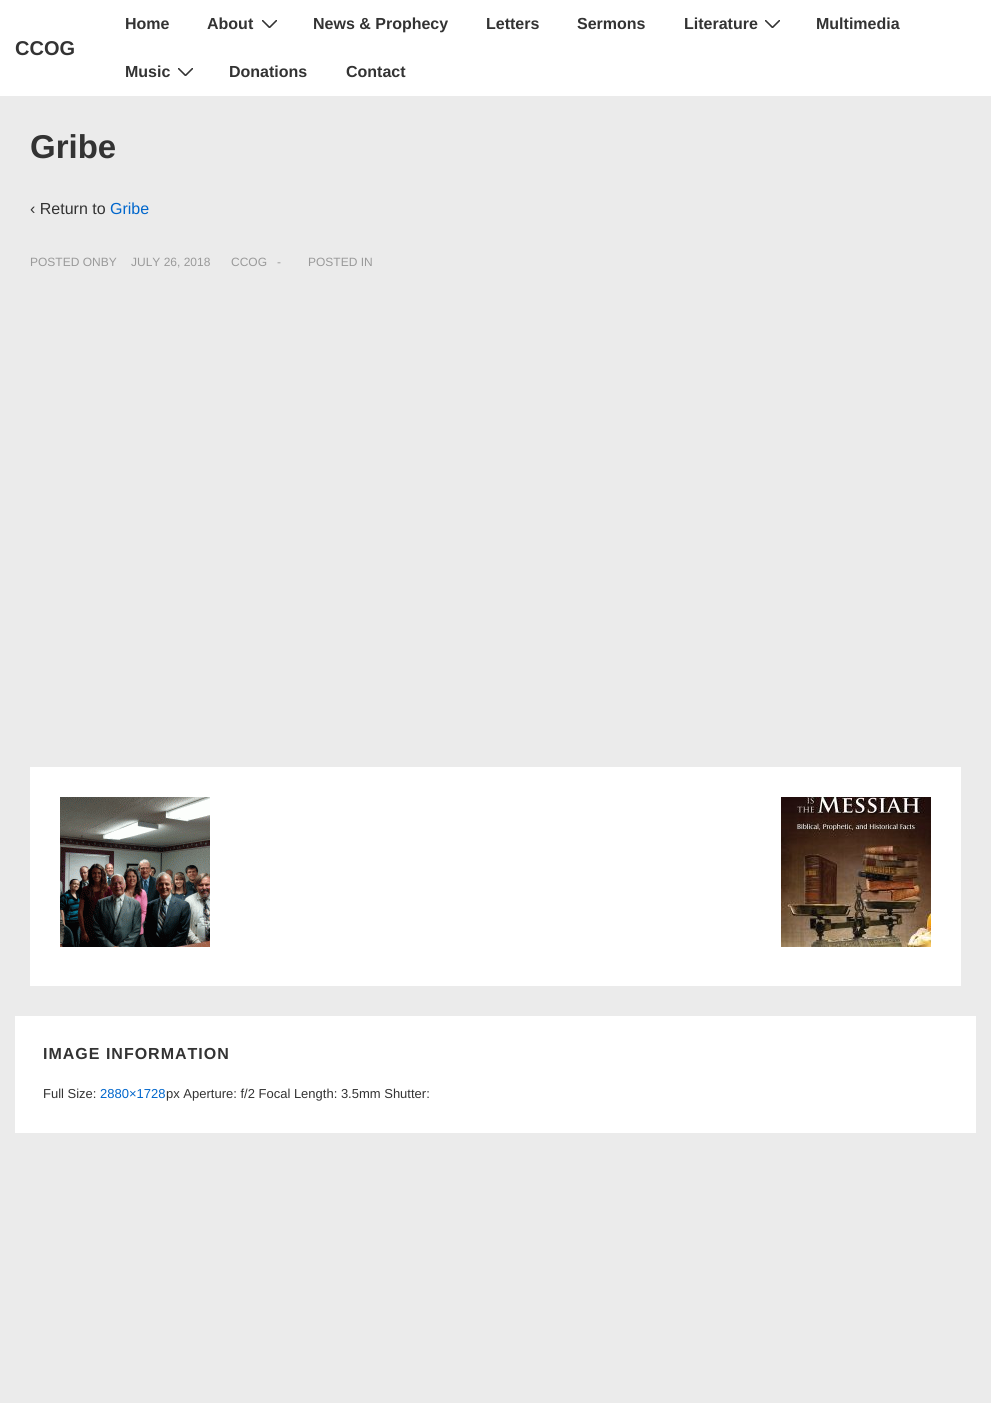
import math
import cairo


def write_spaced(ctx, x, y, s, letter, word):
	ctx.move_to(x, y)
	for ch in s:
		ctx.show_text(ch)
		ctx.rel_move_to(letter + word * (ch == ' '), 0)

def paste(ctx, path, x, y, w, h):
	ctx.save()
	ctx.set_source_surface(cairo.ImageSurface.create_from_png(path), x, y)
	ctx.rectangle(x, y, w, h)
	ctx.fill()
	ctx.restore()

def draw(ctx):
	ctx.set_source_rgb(0.918, 0.918, 0.918)
	ctx.paint()
	ctx.set_source_rgb(1, 1, 1)
	ctx.rectangle(0, 0, 991, 96)
	ctx.fill()
	ctx.select_font_face('Liberation Sans', cairo.FONT_SLANT_NORMAL, cairo.FONT_WEIGHT_BOLD)
	ctx.set_font_size(20)
	ctx.set_source_rgb(0.2, 0.2, 0.2)
	ctx.move_to(15, 55)
	ctx.show_text('CCOG')
	ctx.set_font_size(16)
	ctx.move_to(125, 29)
	ctx.show_text('Home')
	ctx.move_to(207, 29)
	ctx.show_text('About')
	ctx.save()
	ctx.rectangle(262, 20, 15, 8)
	ctx.clip()
	ctx.new_path()
	ctx.move_to(262.5, 20.5)
	ctx.line_to(269.5, 27.5)
	ctx.line_to(276.5, 20.5)
	ctx.set_line_width(1.6)
	ctx.set_line_cap(cairo.LINE_CAP_ROUND)
	ctx.stroke()
	ctx.restore()
	for x, y, s in [
		(313, 29, 'News & Prophecy'),
		(486, 29, 'Letters'),
		(577, 29, 'Sermons'),
		(684, 29, 'Literature'),
	]:
		ctx.move_to(x, y)
		ctx.show_text(s)
	ctx.save()
	ctx.rectangle(765, 20, 15, 8)
	ctx.clip()
	ctx.new_path()
	ctx.move_to(765.5, 20.5)
	ctx.line_to(772.5, 27.5)
	ctx.line_to(779.5, 20.5)
	ctx.set_line_width(1.6)
	ctx.set_line_cap(cairo.LINE_CAP_ROUND)
	ctx.stroke()
	ctx.restore()
	ctx.move_to(816, 29)
	ctx.show_text('Multimedia')
	ctx.move_to(125, 77)
	ctx.show_text('Music')
	ctx.save()
	ctx.rectangle(178, 68, 15, 8)
	ctx.clip()
	ctx.new_path()
	ctx.move_to(178.5, 68.5)
	ctx.line_to(185.5, 75.5)
	ctx.line_to(192.5, 68.5)
	ctx.set_line_width(1.6)
	ctx.set_line_cap(cairo.LINE_CAP_ROUND)
	ctx.stroke()
	ctx.restore()
	ctx.move_to(229, 77)
	ctx.show_text('Donations')
	ctx.move_to(346, 77)
	ctx.show_text('Contact')
	ctx.set_font_size(33)
	ctx.move_to(30, 158)
	ctx.show_text('Gribe')
	ctx.select_font_face('Liberation Sans')
	ctx.set_font_size(16)
	ctx.move_to(30, 214)
	ctx.show_text('‹ Return to')
	ctx.set_source_rgb(0, 0.4, 0.8)
	ctx.move_to(110, 214)
	ctx.show_text('Gribe')
	ctx.set_font_size(12)
	ctx.set_source_rgb(0.6, 0.6, 0.6)
	for x, y, s in [
		(30, 266, 'POSTED ONBY'),
		(131, 266, 'JULY 26, 2018'),
		(231, 266, 'CCOG'),
		(277, 266, '-'),
		(308, 266, 'POSTED IN'),
	]:
		ctx.move_to(x, y)
		ctx.show_text(s)
	ctx.set_source_rgb(1, 1, 1)
	ctx.rectangle(30, 767, 931, 219)
	ctx.fill()
	paste(ctx, 'media/1.png', 60, 797, 150, 150)
	paste(ctx, 'media/2.png', 781, 797, 150, 150)
	ctx.rectangle(15, 1016, 961, 117)
	ctx.fill()
	ctx.select_font_face('Liberation Sans', cairo.FONT_SLANT_NORMAL, cairo.FONT_WEIGHT_BOLD)
	ctx.set_font_size(16)
	ctx.set_source_rgb(0.2, 0.2, 0.2)
	write_spaced(ctx, 43, 1059, 'IMAGE INFORMATION', 1, 0)
	ctx.select_font_face('Liberation Sans')
	ctx.set_font_size(13)
	ctx.move_to(43, 1098)
	ctx.show_text('Full Size:')
	ctx.set_source_rgb(0, 0.4, 0.8)
	ctx.move_to(100, 1098)
	ctx.show_text('2880×1728')
	ctx.set_source_rgb(0.2, 0.2, 0.2)
	ctx.move_to(166, 1098)
	ctx.show_text('px Aperture: f/2 Focal Length: 3.5mm Shutter:')


surface = cairo.ImageSurface(cairo.FORMAT_RGB24, 991, 1403)
ctx = cairo.Context(surface)
options = cairo.FontOptions()
options.set_hint_metrics(cairo.HINT_METRICS_OFF)
options.set_hint_style(cairo.HINT_STYLE_NONE)
ctx.set_font_options(options)
ctx.set_miter_limit(4)
draw(ctx)
surface.write_to_png('image.png')
